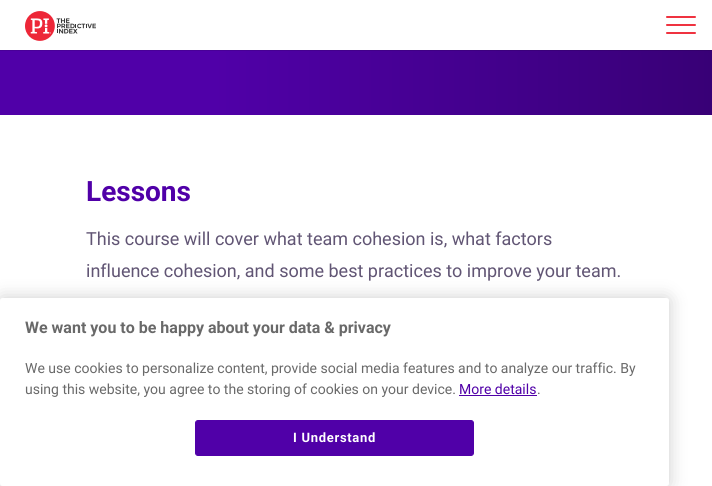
import math
import cairo


def write_spaced(ctx, x, y, s, letter, word):
	ctx.move_to(x, y)
	for ch in s:
		ctx.show_text(ch)
		ctx.rel_move_to(letter + word * (ch == ' '), 0)

def round_path(ctx, x, y, w, h, r):
	ctx.new_sub_path()
	for i, (u, v) in enumerate([(x + w - r, y + h - r), (x + r, y + h - r), (x + r, y + r), (x + w - r, y + r)]):
		ctx.arc(u, v, r, i * math.pi / 2, (i + 1) * math.pi / 2)
	ctx.close_path()

def blur_box(ctx, x, y, w, h, r, blur, alpha):
	ctx.push_group_with_content(cairo.CONTENT_ALPHA)
	ctx.set_operator(cairo.OPERATOR_SOURCE)
	for i in range(15, -16, -2):
		e = blur * i / 6
		if min(w, h) + 2 * e > 0:
			ctx.set_source_rgba(0, 0, 0, alpha * math.erfc((i - 1) / 8.5) / 2)
			round_path(ctx, x - e, y - e, w + 2 * e, h + 2 * e, max(0, min(r + e + blur * .6, min(w, h) / 2 + e)))
			ctx.fill()
	ctx.mask(ctx.pop_group())

def paste(ctx, path, x, y, w, h):
	ctx.save()
	ctx.set_source_surface(cairo.ImageSurface.create_from_png(path), x, y)
	ctx.rectangle(x, y, w, h)
	ctx.fill()
	ctx.restore()

def draw(ctx):
	ctx.set_source_rgb(1, 1, 1)
	ctx.paint()
	paste(ctx, 'media/1.png', 25, 11, 71, 30)
	ctx.set_source_rgb(0.937, 0.2, 0.251)
	round_path(ctx, 666, 24, 30, 2, 1)
	ctx.fill()
	round_path(ctx, 666, 16, 30, 2, 1)
	ctx.fill()
	round_path(ctx, 666, 32, 30, 2, 1)
	ctx.fill()
	gradient = cairo.LinearGradient(0, -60, 712, -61)
	gradient.add_color_stop_rgba(0.3, 0.314, 0, 0.659, 1)
	gradient.add_color_stop_rgba(1, 0.22, 0, 0.463, 1)
	ctx.set_source(gradient)
	ctx.rectangle(0, 51, 712, 64)
	ctx.fill()
	gradient = cairo.LinearGradient(0, -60, 712, -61)
	gradient.add_color_stop_rgba(0.3, 0.282, 0, 0.592, 1)
	gradient.add_color_stop_rgba(1, 0.196, 0, 0.416, 1)
	ctx.set_source(gradient)
	ctx.rectangle(0, 50, 712, 1)
	ctx.fill()
	ctx.select_font_face('Roboto', cairo.FONT_SLANT_NORMAL, cairo.FONT_WEIGHT_BOLD)
	ctx.set_font_size(28)
	ctx.set_source_rgb(0.314, 0, 0.659)
	ctx.move_to(86, 201)
	ctx.show_text('Lessons')
	ctx.select_font_face('Roboto')
	ctx.set_font_size(18)
	ctx.set_source_rgb(0.38, 0.333, 0.455)
	ctx.move_to(86, 245)
	ctx.show_text('This course will cover what team cohesion is, what factors')
	ctx.move_to(86, 277)
	ctx.show_text('influence cohesion, and some best practices to improve your team.')
	ctx.set_source_rgb(0, 0, 0)
	blur_box(ctx, 0, 298, 669, 188, 2.5, 9, 0.2)
	ctx.set_source_rgb(1, 1, 1)
	round_path(ctx, 0, 298, 669, 188, 2.5)
	ctx.fill()
	ctx.select_font_face('Roboto', cairo.FONT_SLANT_NORMAL, cairo.FONT_WEIGHT_BOLD)
	ctx.set_font_size(16)
	ctx.set_source_rgb(0.412, 0.412, 0.412)
	ctx.move_to(25, 333)
	ctx.show_text('We want you to be happy about your data & privacy')
	ctx.select_font_face('Roboto')
	ctx.set_font_size(14)
	ctx.move_to(25, 373)
	ctx.show_text('We use cookies to personalize content, provide social media features and to analyze our traffic. By')
	ctx.move_to(25, 394)
	ctx.show_text('using this website, you agree to the storing of cookies on your device.')
	ctx.set_source_rgb(0.314, 0, 0.659)
	ctx.move_to(459, 394)
	ctx.show_text('More details')
	ctx.rectangle(459, 395, 78, 1)
	ctx.fill()
	ctx.set_source_rgb(0.412, 0.412, 0.412)
	ctx.move_to(537, 394)
	ctx.show_text('.')
	ctx.set_source_rgb(0.314, 0, 0.659)
	round_path(ctx, 195.5, 420.5, 278, 35, 2.5)
	ctx.fill_preserve()
	ctx.set_line_width(1)
	ctx.stroke()
	ctx.select_font_face('Roboto', cairo.FONT_SLANT_NORMAL, cairo.FONT_WEIGHT_BOLD)
	ctx.set_font_size(13)
	ctx.set_source_rgb(1, 1, 1)
	write_spaced(ctx, 293, 442, 'I Understand', 0.7, 0)


surface = cairo.ImageSurface(cairo.FORMAT_RGB24, 712, 486)
ctx = cairo.Context(surface)
options = cairo.FontOptions()
options.set_hint_metrics(cairo.HINT_METRICS_OFF)
options.set_hint_style(cairo.HINT_STYLE_NONE)
ctx.set_font_options(options)
ctx.set_miter_limit(4)
draw(ctx)
surface.write_to_png('image.png')
